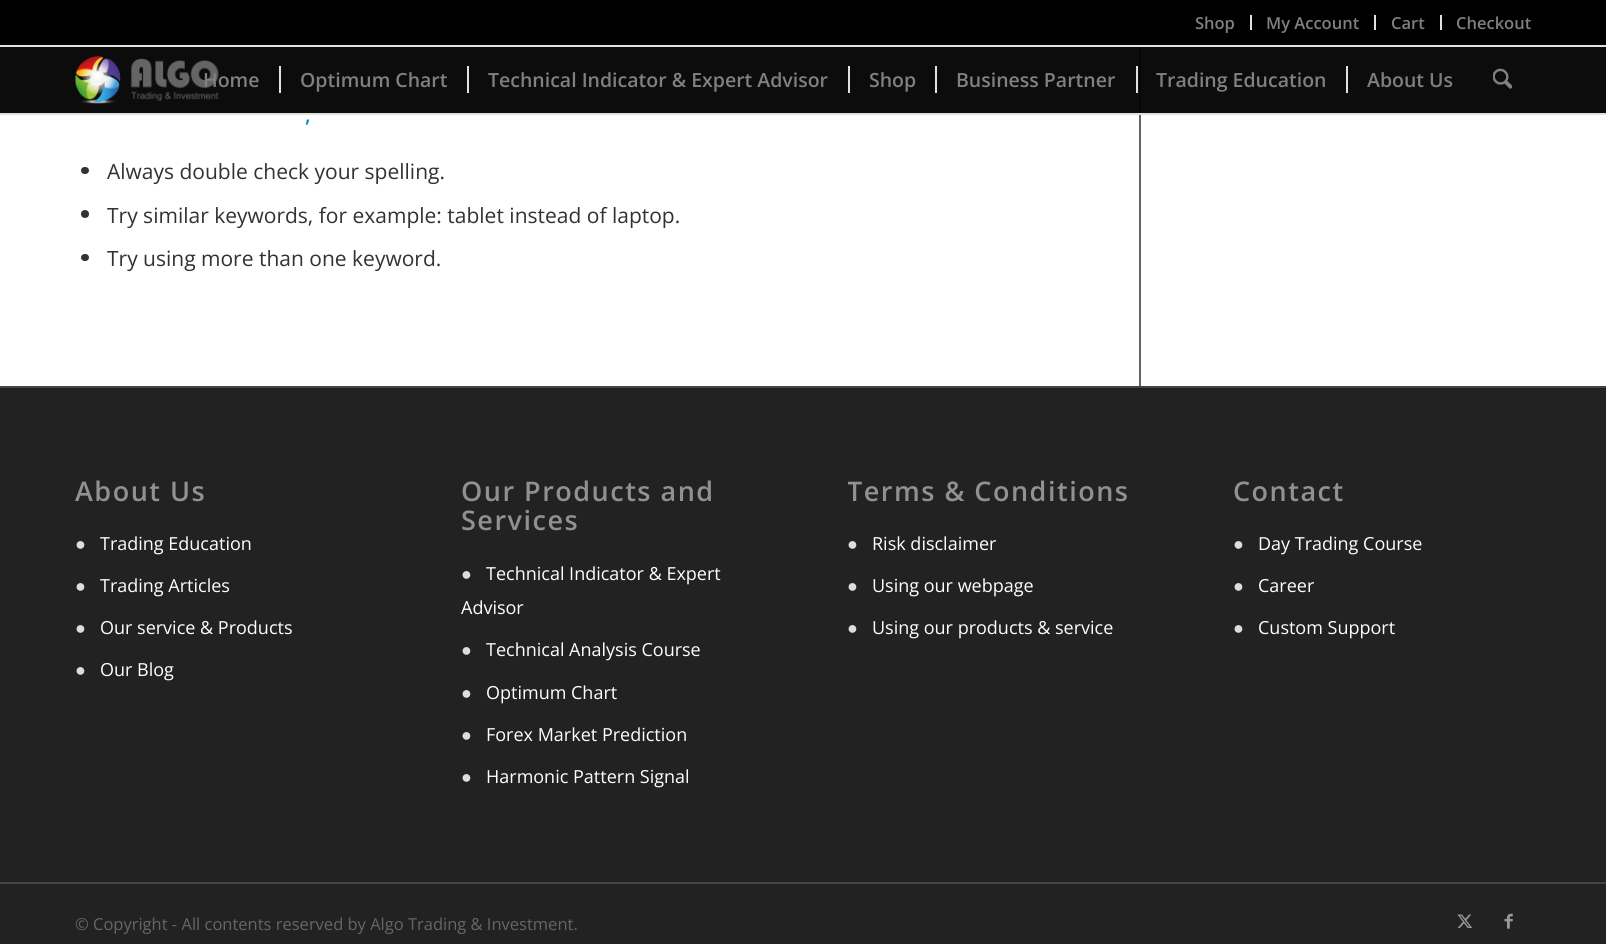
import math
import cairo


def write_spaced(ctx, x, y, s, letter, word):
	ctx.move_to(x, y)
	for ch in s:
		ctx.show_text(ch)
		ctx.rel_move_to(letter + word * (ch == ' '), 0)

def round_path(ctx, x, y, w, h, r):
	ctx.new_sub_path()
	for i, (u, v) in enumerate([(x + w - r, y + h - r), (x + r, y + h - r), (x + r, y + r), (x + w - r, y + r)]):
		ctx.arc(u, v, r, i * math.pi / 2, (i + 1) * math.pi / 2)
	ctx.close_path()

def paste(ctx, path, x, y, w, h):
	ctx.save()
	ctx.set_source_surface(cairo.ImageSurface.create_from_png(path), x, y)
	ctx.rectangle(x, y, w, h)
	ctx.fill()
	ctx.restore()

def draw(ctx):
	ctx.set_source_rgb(1, 1, 1)
	ctx.paint()
	ctx.set_source_rgb(0, 0, 0)
	ctx.rectangle(0, 0, 1606, 45)
	ctx.fill()
	ctx.set_source_rgb(0.882, 0.882, 0.882)
	ctx.rectangle(0, 45, 1606, 2)
	ctx.rectangle(1250, 15, 2, 15)
	ctx.fill()
	ctx.select_font_face('Open Sans SemiBold')
	ctx.set_font_size(16.5)
	ctx.set_source_rgb(0.502, 0.502, 0.502)
	ctx.move_to(1195, 29)
	ctx.show_text('Shop')
	ctx.set_source_rgb(0.882, 0.882, 0.882)
	ctx.rectangle(1374, 15, 2, 15)
	ctx.fill()
	ctx.set_source_rgb(0.502, 0.502, 0.502)
	ctx.move_to(1266, 29)
	ctx.show_text('My Account')
	ctx.set_source_rgb(0.882, 0.882, 0.882)
	ctx.rectangle(1440, 15, 2, 15)
	ctx.fill()
	ctx.set_source_rgb(0.502, 0.502, 0.502)
	ctx.move_to(1391, 29)
	ctx.show_text('Cart')
	ctx.move_to(1456, 29)
	ctx.show_text('Checkout')
	ctx.set_source_rgb(0.392, 0.392, 0.392)
	ctx.rectangle(1139, 47, 2, 339)
	ctx.fill()
	ctx.set_source_rgba(0, 0, 0, 0.95)
	ctx.rectangle(0, 47, 1606, 66)
	ctx.fill()
	ctx.set_source_rgb(0.882, 0.882, 0.882)
	ctx.rectangle(0, 113, 1606, 2)
	ctx.fill()
	paste(ctx, 'media/1.png', 75, 56, 144, 48)
	ctx.set_font_size(19.5)
	ctx.set_source_rgb(0.502, 0.502, 0.502)
	ctx.move_to(203, 87)
	ctx.show_text('Home')
	ctx.move_to(300, 87)
	ctx.show_text('Optimum Chart')
	ctx.set_source_rgb(0.882, 0.882, 0.882)
	ctx.rectangle(279, 66, 2, 27)
	ctx.fill()
	ctx.set_source_rgb(0.502, 0.502, 0.502)
	ctx.move_to(488, 87)
	ctx.show_text('Technical Indicator & Expert Advisor')
	ctx.set_source_rgb(0.882, 0.882, 0.882)
	ctx.rectangle(467, 66, 2, 27)
	ctx.fill()
	ctx.set_source_rgb(0.502, 0.502, 0.502)
	ctx.move_to(869, 87)
	ctx.show_text('Shop')
	ctx.set_source_rgb(0.882, 0.882, 0.882)
	ctx.rectangle(848, 66, 2, 27)
	ctx.fill()
	ctx.set_source_rgb(0.502, 0.502, 0.502)
	ctx.move_to(956, 87)
	ctx.show_text('Business Partner')
	ctx.set_source_rgb(0.882, 0.882, 0.882)
	ctx.rectangle(935, 66, 2, 27)
	ctx.fill()
	ctx.set_source_rgb(0.502, 0.502, 0.502)
	ctx.move_to(1156, 87)
	ctx.show_text('Trading Education')
	ctx.set_source_rgb(0.882, 0.882, 0.882)
	ctx.rectangle(1136, 66, 2, 27)
	ctx.fill()
	ctx.set_source_rgb(0.502, 0.502, 0.502)
	ctx.move_to(1367, 87)
	ctx.show_text('About Us')
	ctx.set_source_rgb(0.882, 0.882, 0.882)
	ctx.rectangle(1346, 66, 2, 27)
	ctx.fill()
	paste(ctx, 'media/2.png', 1493, 68, 19, 21)
	ctx.set_font_size(21)
	ctx.set_source_rgb(0, 0.573, 0.8)
	ctx.move_to(305, 122)
	ctx.show_text(',')
	ctx.set_source_rgb(0.196, 0.196, 0.196)
	round_path(ctx, 81, 167, 8, 7, 3.5)
	ctx.fill()
	ctx.select_font_face('Open Sans')
	ctx.move_to(107, 179)
	ctx.show_text('Always double check your spelling.')
	ctx.new_path()
	ctx.arc(85, 214, 4, 0, 2 * math.pi)
	ctx.fill()
	ctx.move_to(107, 223)
	ctx.show_text('Try similar keywords, for example: tablet instead of laptop.')
	round_path(ctx, 81, 254, 8, 7, 3.5)
	ctx.fill()
	ctx.move_to(107, 266)
	ctx.show_text('Try using more than one keyword.')
	ctx.set_source_rgb(0.133, 0.133, 0.133)
	ctx.rectangle(0, 388, 1606, 494)
	ctx.fill()
	ctx.set_source_rgb(0.267, 0.267, 0.267)
	ctx.rectangle(0, 386, 1606, 2)
	ctx.fill()
	ctx.select_font_face('Open Sans SemiBold')
	ctx.set_font_size(27)
	ctx.set_source_rgb(0.569, 0.569, 0.569)
	write_spaced(ctx, 75, 501, 'About Us', 1.5, 0)
	ctx.select_font_face('Liberation Sans')
	ctx.set_font_size(18)
	ctx.set_source_rgb(0.867, 0.867, 0.867)
	ctx.move_to(75, 550)
	ctx.show_text('●')
	ctx.select_font_face('Open Sans')
	ctx.set_source_rgb(1, 1, 1)
	ctx.move_to(100, 550)
	ctx.show_text('Trading Education')
	ctx.select_font_face('Liberation Sans')
	ctx.set_source_rgb(0.867, 0.867, 0.867)
	ctx.move_to(75, 592)
	ctx.show_text('●')
	ctx.select_font_face('Open Sans')
	ctx.set_source_rgb(1, 1, 1)
	ctx.move_to(100, 592)
	ctx.show_text('Trading Articles')
	ctx.select_font_face('Liberation Sans')
	ctx.set_source_rgb(0.867, 0.867, 0.867)
	ctx.move_to(75, 634)
	ctx.show_text('●')
	ctx.select_font_face('Open Sans')
	ctx.set_source_rgb(1, 1, 1)
	ctx.move_to(100, 634)
	ctx.show_text('Our service & Products')
	ctx.select_font_face('Liberation Sans')
	ctx.set_source_rgb(0.867, 0.867, 0.867)
	ctx.move_to(75, 676)
	ctx.show_text('●')
	ctx.select_font_face('Open Sans')
	ctx.set_source_rgb(1, 1, 1)
	ctx.move_to(100, 676)
	ctx.show_text('Our Blog')
	ctx.select_font_face('Open Sans SemiBold')
	ctx.set_font_size(27)
	ctx.set_source_rgb(0.569, 0.569, 0.569)
	write_spaced(ctx, 461, 501, 'Our Products and', 1.5, 0)
	write_spaced(ctx, 461, 530, 'Services', 1.5, 0)
	ctx.select_font_face('Liberation Sans')
	ctx.set_font_size(18)
	ctx.set_source_rgb(0.867, 0.867, 0.867)
	ctx.move_to(461, 580)
	ctx.show_text('●')
	ctx.select_font_face('Open Sans')
	ctx.set_source_rgb(1, 1, 1)
	ctx.move_to(486, 580)
	ctx.show_text('Technical Indicator & Expert')
	ctx.move_to(461, 614)
	ctx.show_text('Advisor')
	ctx.select_font_face('Liberation Sans')
	ctx.set_source_rgb(0.867, 0.867, 0.867)
	ctx.move_to(461, 656)
	ctx.show_text('●')
	ctx.select_font_face('Open Sans')
	ctx.set_source_rgb(1, 1, 1)
	ctx.move_to(486, 656)
	ctx.show_text('Technical Analysis Course')
	ctx.select_font_face('Liberation Sans')
	ctx.set_source_rgb(0.867, 0.867, 0.867)
	ctx.move_to(461, 699)
	ctx.show_text('●')
	ctx.select_font_face('Open Sans')
	ctx.set_source_rgb(1, 1, 1)
	ctx.move_to(486, 699)
	ctx.show_text('Optimum Chart')
	ctx.select_font_face('Liberation Sans')
	ctx.set_source_rgb(0.867, 0.867, 0.867)
	ctx.move_to(461, 741)
	ctx.show_text('●')
	ctx.select_font_face('Open Sans')
	ctx.set_source_rgb(1, 1, 1)
	ctx.move_to(486, 741)
	ctx.show_text('Forex Market Prediction')
	ctx.select_font_face('Liberation Sans')
	ctx.set_source_rgb(0.867, 0.867, 0.867)
	ctx.move_to(461, 783)
	ctx.show_text('●')
	ctx.select_font_face('Open Sans')
	ctx.set_source_rgb(1, 1, 1)
	ctx.move_to(486, 783)
	ctx.show_text('Harmonic Pattern Signal')
	ctx.save()
	ctx.rectangle(848, 455, 298, 190)
	ctx.clip()
	ctx.select_font_face('Open Sans SemiBold')
	ctx.set_font_size(27)
	ctx.set_source_rgb(0.569, 0.569, 0.569)
	write_spaced(ctx, 847, 501, 'Terms & Conditions', 1.5, 0)
	ctx.restore()
	ctx.select_font_face('Liberation Sans')
	ctx.set_source_rgb(0.867, 0.867, 0.867)
	ctx.move_to(847, 550)
	ctx.show_text('●')
	ctx.select_font_face('Open Sans')
	ctx.set_source_rgb(1, 1, 1)
	ctx.move_to(872, 550)
	ctx.show_text('Risk disclaimer')
	ctx.select_font_face('Liberation Sans')
	ctx.set_source_rgb(0.867, 0.867, 0.867)
	ctx.move_to(847, 592)
	ctx.show_text('●')
	ctx.select_font_face('Open Sans')
	ctx.set_source_rgb(1, 1, 1)
	ctx.move_to(872, 592)
	ctx.show_text('Using our webpage')
	ctx.select_font_face('Liberation Sans')
	ctx.set_source_rgb(0.867, 0.867, 0.867)
	ctx.move_to(847, 634)
	ctx.show_text('●')
	ctx.select_font_face('Open Sans')
	ctx.set_source_rgb(1, 1, 1)
	ctx.move_to(872, 634)
	ctx.show_text('Using our products & service')
	ctx.select_font_face('Open Sans SemiBold')
	ctx.set_font_size(27)
	ctx.set_source_rgb(0.569, 0.569, 0.569)
	write_spaced(ctx, 1233, 501, 'Contact', 1.5, 0)
	ctx.select_font_face('Liberation Sans')
	ctx.set_font_size(18)
	ctx.set_source_rgb(0.867, 0.867, 0.867)
	ctx.move_to(1233, 550)
	ctx.show_text('●')
	ctx.select_font_face('Open Sans')
	ctx.set_source_rgb(1, 1, 1)
	ctx.move_to(1258, 550)
	ctx.show_text('Day Trading Course')
	ctx.select_font_face('Liberation Sans')
	ctx.set_source_rgb(0.867, 0.867, 0.867)
	ctx.move_to(1233, 592)
	ctx.show_text('●')
	ctx.select_font_face('Open Sans')
	ctx.set_source_rgb(1, 1, 1)
	ctx.move_to(1258, 592)
	ctx.show_text('Career')
	ctx.select_font_face('Liberation Sans')
	ctx.set_source_rgb(0.867, 0.867, 0.867)
	ctx.move_to(1233, 634)
	ctx.show_text('●')
	ctx.select_font_face('Open Sans')
	ctx.set_source_rgb(1, 1, 1)
	ctx.move_to(1258, 634)
	ctx.show_text('Custom Support')
	ctx.set_source_rgb(0.133, 0.133, 0.133)
	ctx.rectangle(0, 884, 1606, 60)
	ctx.fill()
	ctx.set_source_rgb(0.267, 0.267, 0.267)
	ctx.rectangle(0, 882, 1606, 2)
	ctx.fill()
	ctx.set_font_size(16.5)
	ctx.set_source_rgb(0.4, 0.4, 0.4)
	ctx.move_to(75, 930)
	ctx.show_text('© Copyright - All contents reserved by Algo Trading & Investment.')
	paste(ctx, 'media/3.png', 1457, 914, 15, 14)
	paste(ctx, 'media/4.png', 1504, 913, 9, 16)


surface = cairo.ImageSurface(cairo.FORMAT_RGB24, 1606, 944)
ctx = cairo.Context(surface)
options = cairo.FontOptions()
options.set_hint_metrics(cairo.HINT_METRICS_OFF)
options.set_hint_style(cairo.HINT_STYLE_NONE)
ctx.set_font_options(options)
ctx.set_miter_limit(4)
draw(ctx)
surface.write_to_png('image.png')
